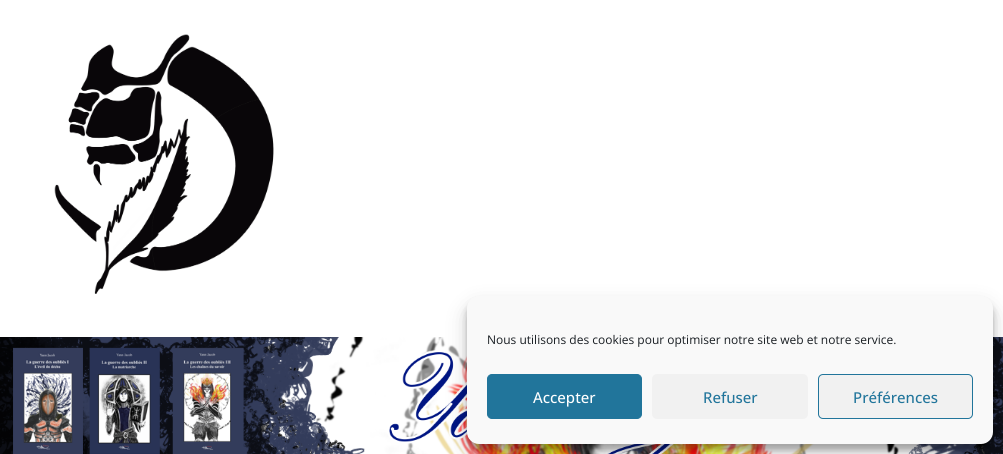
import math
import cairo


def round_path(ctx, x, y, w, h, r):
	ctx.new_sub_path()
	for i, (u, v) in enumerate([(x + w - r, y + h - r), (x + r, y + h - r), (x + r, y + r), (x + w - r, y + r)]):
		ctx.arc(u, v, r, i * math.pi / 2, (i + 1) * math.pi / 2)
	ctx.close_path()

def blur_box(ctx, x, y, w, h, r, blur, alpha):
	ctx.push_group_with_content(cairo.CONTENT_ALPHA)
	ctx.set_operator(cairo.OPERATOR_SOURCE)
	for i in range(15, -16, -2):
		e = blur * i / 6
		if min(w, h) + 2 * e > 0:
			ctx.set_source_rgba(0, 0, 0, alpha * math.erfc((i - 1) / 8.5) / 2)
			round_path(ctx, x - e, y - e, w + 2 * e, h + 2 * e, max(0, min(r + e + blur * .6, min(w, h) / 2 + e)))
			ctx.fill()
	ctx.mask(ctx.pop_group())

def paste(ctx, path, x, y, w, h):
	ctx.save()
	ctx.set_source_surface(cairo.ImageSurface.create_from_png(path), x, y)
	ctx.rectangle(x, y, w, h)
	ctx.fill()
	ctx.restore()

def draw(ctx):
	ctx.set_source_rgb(1, 1, 1)
	ctx.paint()
	paste(ctx, 'media/1.png', 54, 34, 220, 260)
	paste(ctx, 'media/2.png', 0, 337, 1003, 117)
	ctx.set_source_rgb(0, 0, 0)
	blur_box(ctx, 467, 302, 526, 148, 12, 3, 0.23)
	blur_box(ctx, 467, 306, 526, 148, 12, 10, 0.19)
	ctx.set_source_rgb(0.976, 0.976, 0.976)
	round_path(ctx, 467, 296, 526, 148, 12)
	ctx.fill()
	ctx.select_font_face('Open Sans')
	ctx.set_font_size(12)
	ctx.set_source_rgb(0.098, 0.118, 0.137)
	ctx.move_to(487, 344)
	ctx.show_text('Nous utilisons des cookies pour optimiser notre site web et notre service.')
	ctx.set_source_rgb(0.129, 0.459, 0.608)
	round_path(ctx, 487.5, 374.5, 154, 44, 4.5)
	ctx.fill_preserve()
	ctx.set_line_width(1)
	ctx.stroke()
	ctx.select_font_face('Open Sans Medium')
	ctx.set_font_size(15)
	ctx.set_source_rgb(1, 1, 1)
	ctx.move_to(533, 403)
	ctx.show_text('Accepter')
	ctx.set_source_rgb(0.945, 0.945, 0.945)
	round_path(ctx, 652, 374, 156, 45, 5)
	ctx.fill()
	ctx.set_source_rgb(0.129, 0.459, 0.608)
	ctx.move_to(703, 403)
	ctx.show_text('Refuser')
	ctx.set_source_rgb(0.945, 0.945, 0.945)
	round_path(ctx, 818.5, 374.5, 154, 44, 4.5)
	ctx.fill_preserve()
	ctx.set_source_rgb(0.129, 0.459, 0.608)
	ctx.stroke()
	ctx.move_to(853, 403)
	ctx.show_text('Préférences')


surface = cairo.ImageSurface(cairo.FORMAT_RGB24, 1003, 454)
ctx = cairo.Context(surface)
options = cairo.FontOptions()
options.set_hint_metrics(cairo.HINT_METRICS_OFF)
options.set_hint_style(cairo.HINT_STYLE_NONE)
ctx.set_font_options(options)
ctx.set_miter_limit(4)
draw(ctx)
surface.write_to_png('image.png')
